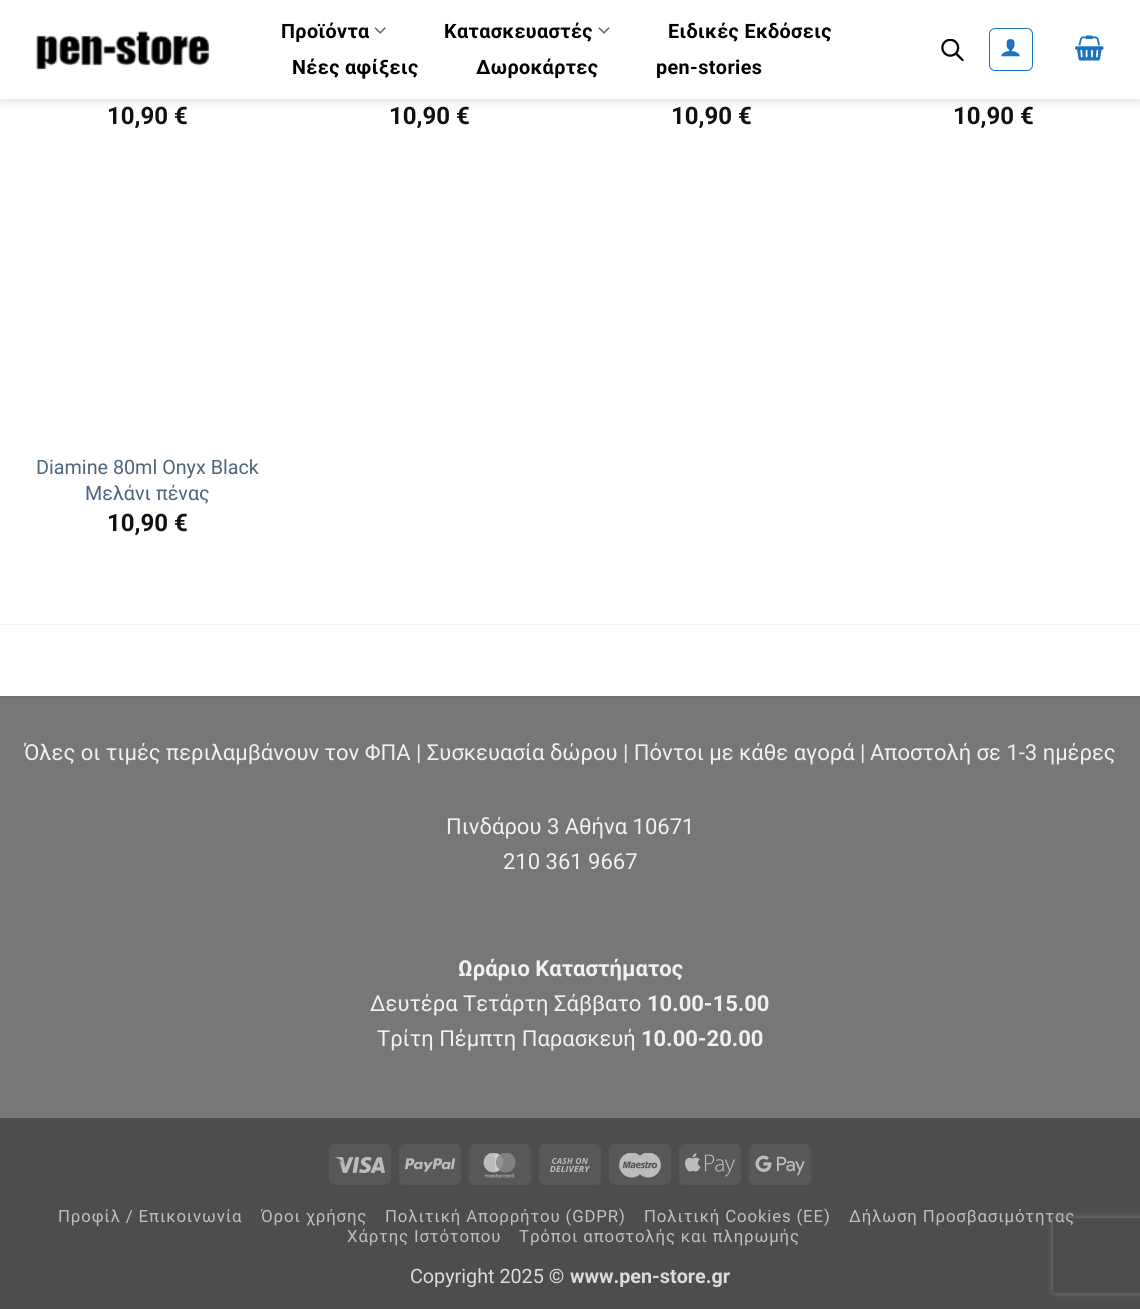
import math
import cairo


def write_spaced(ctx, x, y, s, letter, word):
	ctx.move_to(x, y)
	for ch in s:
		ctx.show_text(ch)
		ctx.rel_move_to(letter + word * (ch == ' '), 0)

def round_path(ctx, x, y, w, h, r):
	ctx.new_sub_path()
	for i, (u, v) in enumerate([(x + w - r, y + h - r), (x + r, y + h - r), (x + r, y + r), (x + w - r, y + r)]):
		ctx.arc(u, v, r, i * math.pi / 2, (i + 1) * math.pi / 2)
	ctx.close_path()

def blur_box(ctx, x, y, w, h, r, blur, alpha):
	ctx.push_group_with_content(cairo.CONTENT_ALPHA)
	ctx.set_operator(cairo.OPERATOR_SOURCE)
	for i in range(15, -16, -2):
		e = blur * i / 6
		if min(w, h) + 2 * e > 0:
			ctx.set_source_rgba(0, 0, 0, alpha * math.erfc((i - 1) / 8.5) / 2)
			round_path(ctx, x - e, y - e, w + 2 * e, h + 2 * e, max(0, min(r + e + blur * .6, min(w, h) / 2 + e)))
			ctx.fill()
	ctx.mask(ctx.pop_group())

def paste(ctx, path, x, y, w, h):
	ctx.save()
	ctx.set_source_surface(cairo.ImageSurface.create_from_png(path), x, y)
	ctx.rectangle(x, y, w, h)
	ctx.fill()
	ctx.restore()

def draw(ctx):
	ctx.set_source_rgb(1, 1, 1)
	ctx.paint()
	ctx.set_source_rgb(0, 0, 0)
	blur_box(ctx, 1, 1, 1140, 99, 0, 6, 0.15)
	ctx.set_source_rgb(1, 1, 1)
	ctx.rectangle(0, 0, 1140, 99)
	ctx.fill()
	paste(ctx, 'media/1.png', 36, 31, 174, 39)
	ctx.select_font_face('Roboto', cairo.FONT_SLANT_NORMAL, cairo.FONT_WEIGHT_BOLD)
	ctx.set_font_size(19.75)
	ctx.set_source_rgb(0, 0, 0)
	write_spaced(ctx, 281, 38, 'Προϊόντα', 0.4, 0)
	paste(ctx, 'media/2.png', 374, 27, 12, 7)
	write_spaced(ctx, 444, 38, 'Κατασκευαστές', 0.4, 0)
	paste(ctx, 'media/3.png', 598, 27, 12, 7)
	for x, y, s in [
		(668, 38, 'Ειδικές Εκδόσεις'),
		(292, 74, 'Νέες αφίξεις'),
		(476, 74, 'Δωροκάρτες'),
		(656, 74, 'pen-stories'),
	]:
		write_spaced(ctx, x, y, s, 0.4, 0)
	paste(ctx, 'media/4.png', 941, 39, 23, 22)
	round_path(ctx, 989.5, 28.5, 43, 42, 5.5)
	ctx.set_source_rgb(0.118, 0.451, 0.745)
	ctx.set_line_width(1)
	ctx.stroke()
	paste(ctx, 'media/5.png', 1001, 39, 19, 18)
	paste(ctx, 'media/6.png', 1075, 35, 29, 26)
	ctx.set_font_size(24)
	ctx.set_source_rgb(0.067, 0.067, 0.067)
	for x, y, s in [
		(107, 124, '10,90 €'),
		(389, 124, '10,90 €'),
		(671, 124, '10,90 €'),
		(953, 124, '10,90 €'),
	]:
		ctx.move_to(x, y)
		ctx.show_text(s)
	ctx.select_font_face('Roboto')
	ctx.set_font_size(19.75)
	ctx.set_source_rgb(0.306, 0.396, 0.482)
	ctx.move_to(36, 474)
	ctx.show_text('Diamine 80ml Onyx Black')
	ctx.move_to(85, 500)
	ctx.show_text('Μελάνι πένας')
	ctx.select_font_face('Roboto', cairo.FONT_SLANT_NORMAL, cairo.FONT_WEIGHT_BOLD)
	ctx.set_font_size(24)
	ctx.set_source_rgb(0.067, 0.067, 0.067)
	ctx.move_to(107, 531)
	ctx.show_text('10,90 €')
	ctx.set_source_rgb(0.949, 0.949, 0.949)
	ctx.rectangle(0, 624, 1140, 1)
	ctx.fill()
	ctx.set_source_rgb(0.467, 0.467, 0.467)
	ctx.rectangle(0, 697, 1140, 421)
	ctx.fill()
	ctx.set_source_rgb(0.443, 0.443, 0.443)
	ctx.rectangle(0, 696, 1140, 1)
	ctx.fill()
	ctx.select_font_face('Roboto')
	ctx.set_font_size(22)
	ctx.set_source_rgb(0.945, 0.945, 0.945)
	for x, y, s in [
		(24, 760, 'Όλες οι τιμές περιλαμβάνουν τον ΦΠΑ | Συσκευασία δώρου | Πόντοι με κάθε αγορά |'),
		(870, 760, 'Αποστολή σε 1-3 ημέρες'),
		(446, 834, 'Πινδάρου 3 Αθήνα 10671'),
		(503, 869, '210 361 9667'),
	]:
		ctx.move_to(x, y)
		ctx.show_text(s)
	ctx.select_font_face('Roboto', cairo.FONT_SLANT_NORMAL, cairo.FONT_WEIGHT_BOLD)
	ctx.move_to(458, 976)
	ctx.show_text('Ωράριο Καταστήματος')
	ctx.select_font_face('Roboto')
	ctx.move_to(370, 1011)
	ctx.show_text('Δευτέρα Τετάρτη Σάββατο')
	ctx.select_font_face('Roboto', cairo.FONT_SLANT_NORMAL, cairo.FONT_WEIGHT_BOLD)
	ctx.move_to(647, 1011)
	ctx.show_text('10.00-15.00')
	ctx.select_font_face('Roboto')
	ctx.move_to(377, 1046)
	ctx.show_text('Τρίτη Πέμπτη Παρασκευή')
	ctx.select_font_face('Roboto', cairo.FONT_SLANT_NORMAL, cairo.FONT_WEIGHT_BOLD)
	ctx.move_to(641, 1046)
	ctx.show_text('10.00-20.00')
	ctx.set_source_rgb(0.302, 0.302, 0.302)
	ctx.rectangle(0, 1118, 1140, 191)
	ctx.fill()
	ctx.set_source_rgb(0.345, 0.345, 0.345)
	round_path(ctx, 329, 1144, 62, 41, 6)
	ctx.fill()
	paste(ctx, 'media/7.png', 335, 1156, 50, 18)
	round_path(ctx, 399, 1144, 62, 41, 6)
	ctx.fill()
	paste(ctx, 'media/8.png', 405, 1158, 50, 14)
	round_path(ctx, 469, 1144, 62, 41, 6)
	ctx.fill()
	paste(ctx, 'media/9.png', 483, 1153, 33, 25)
	round_path(ctx, 539, 1144, 62, 41, 6)
	ctx.fill()
	paste(ctx, 'media/10.png', 550, 1158, 40, 14)
	round_path(ctx, 609, 1144, 62, 41, 6)
	ctx.fill()
	paste(ctx, 'media/11.png', 619, 1153, 42, 25)
	round_path(ctx, 679, 1144, 62, 41, 6)
	ctx.fill()
	paste(ctx, 'media/12.png', 685, 1153, 50, 24)
	round_path(ctx, 749, 1144, 62, 41, 6)
	ctx.fill()
	paste(ctx, 'media/13.png', 755, 1155, 50, 21)
	ctx.select_font_face('Roboto')
	ctx.set_font_size(16.8)
	ctx.set_source_rgb(0.749, 0.749, 0.749)
	for x, y, s in [
		(58, 1222, 'Προφίλ / Επικοινωνία'),
		(261, 1222, 'Όροι χρήσης'),
		(385, 1222, 'Πολιτική Απορρήτου (GDPR)'),
		(644, 1222, 'Πολιτική Cookies (ΕΕ)'),
		(849, 1222, 'Δήλωση Προσβασιμότητας'),
		(347, 1242, 'Χάρτης Ιστότοπου'),
		(519, 1242, 'Τρόποι αποστολής και πληρωμής'),
	]:
		write_spaced(ctx, x, y, s, 0.85, 0)
	ctx.set_font_size(19.75)
	ctx.set_source_rgb(0.859, 0.859, 0.859)
	ctx.move_to(410, 1283)
	ctx.show_text('Copyright 2025 ©')
	ctx.select_font_face('Roboto', cairo.FONT_SLANT_NORMAL, cairo.FONT_WEIGHT_BOLD)
	ctx.move_to(570, 1283)
	ctx.show_text('www.pen-store.gr')
	ctx.save()
	ctx.set_fill_rule(cairo.FILL_RULE_EVEN_ODD)
	ctx.new_path()
	ctx.move_to(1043, 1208)
	ctx.line_to(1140, 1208)
	ctx.line_to(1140, 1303)
	ctx.line_to(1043, 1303)
	ctx.close_path()
	ctx.move_to(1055.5, 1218)
	ctx.line_to(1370.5, 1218)
	ctx.curve_to(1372, 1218, 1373, 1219, 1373, 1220.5)
	ctx.line_to(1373, 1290.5)
	ctx.curve_to(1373, 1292, 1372, 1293, 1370.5, 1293)
	ctx.line_to(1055.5, 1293)
	ctx.curve_to(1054, 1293, 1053, 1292, 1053, 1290.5)
	ctx.line_to(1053, 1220.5)
	ctx.curve_to(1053, 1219, 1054, 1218, 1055.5, 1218)
	ctx.close_path()
	ctx.clip()
	ctx.set_source_rgb(0.502, 0.502, 0.502)
	blur_box(ctx, 1053, 1218, 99, 75, 2.5, 3, 1)
	ctx.restore()


surface = cairo.ImageSurface(cairo.FORMAT_RGB24, 1140, 1309)
ctx = cairo.Context(surface)
options = cairo.FontOptions()
options.set_hint_metrics(cairo.HINT_METRICS_OFF)
options.set_hint_style(cairo.HINT_STYLE_NONE)
ctx.set_font_options(options)
ctx.set_miter_limit(4)
draw(ctx)
surface.write_to_png('image.png')
